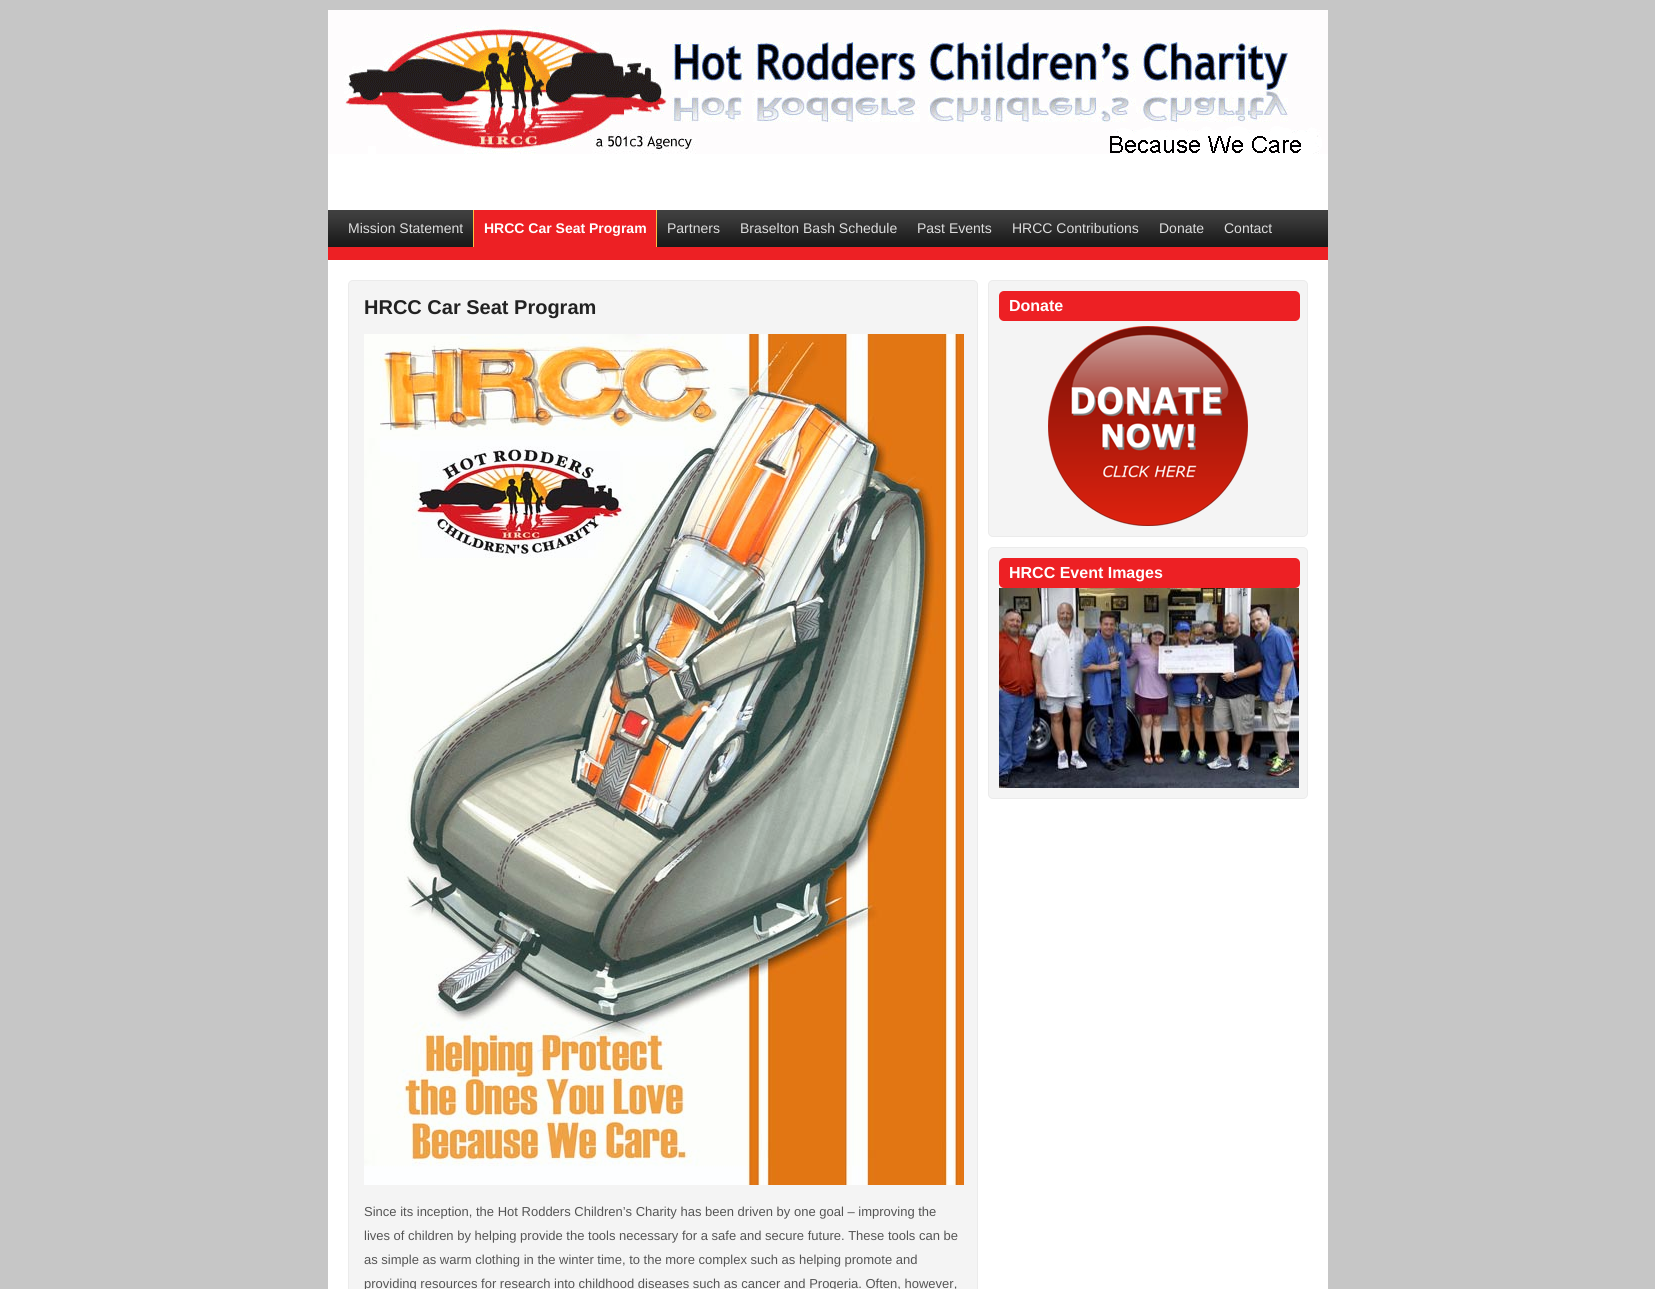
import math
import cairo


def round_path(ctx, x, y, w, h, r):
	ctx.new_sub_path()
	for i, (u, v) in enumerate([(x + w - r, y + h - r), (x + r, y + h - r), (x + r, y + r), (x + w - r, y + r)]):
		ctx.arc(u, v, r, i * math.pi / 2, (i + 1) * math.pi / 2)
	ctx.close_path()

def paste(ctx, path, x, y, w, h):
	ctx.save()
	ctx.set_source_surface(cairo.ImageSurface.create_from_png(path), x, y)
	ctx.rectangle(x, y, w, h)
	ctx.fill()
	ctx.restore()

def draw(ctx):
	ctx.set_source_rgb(0.776, 0.776, 0.776)
	ctx.paint()
	ctx.set_source_rgb(1, 1, 1)
	ctx.rectangle(328, 154, 1000, 1135)
	ctx.fill()
	paste(ctx, 'media/1.png', 328, 10, 1000, 144)
	paste(ctx, 'media/2.png', 328, 210, 1000, 37)
	ctx.select_font_face('Liberation Sans')
	ctx.set_font_size(14)
	ctx.set_source_rgb(0.867, 0.867, 0.867)
	ctx.move_to(348, 233)
	ctx.show_text('Mission Statement')
	ctx.set_source_rgb(0.929, 0.125, 0.141)
	ctx.rectangle(474, 210, 182, 37)
	ctx.fill()
	ctx.set_source_rgb(1, 0.741, 0.247)
	ctx.rectangle(656, 210, 1, 37)
	ctx.rectangle(473, 210, 1, 37)
	ctx.fill()
	ctx.select_font_face('Liberation Sans', cairo.FONT_SLANT_NORMAL, cairo.FONT_WEIGHT_BOLD)
	ctx.set_source_rgb(1, 1, 1)
	ctx.move_to(484, 233)
	ctx.show_text('HRCC Car Seat Program')
	ctx.select_font_face('Liberation Sans')
	ctx.set_source_rgb(0.867, 0.867, 0.867)
	for x, y, s in [
		(667, 233, 'Partners'),
		(740, 233, 'Braselton Bash Schedule'),
		(917, 233, 'Past Events'),
		(1012, 233, 'HRCC Contributions'),
		(1159, 233, 'Donate'),
		(1224, 233, 'Contact'),
	]:
		ctx.move_to(x, y)
		ctx.show_text(s)
	ctx.set_source_rgb(0.929, 0.125, 0.141)
	ctx.rectangle(328, 247, 1000, 13)
	ctx.fill()
	ctx.set_source_rgb(0.957, 0.957, 0.957)
	round_path(ctx, 348.5, 280.5, 629, 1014, 4.5)
	ctx.fill_preserve()
	ctx.set_source_rgb(0.918, 0.918, 0.918)
	ctx.set_line_width(1)
	ctx.stroke()
	ctx.select_font_face('Liberation Sans', cairo.FONT_SLANT_NORMAL, cairo.FONT_WEIGHT_BOLD)
	ctx.set_font_size(20)
	ctx.set_source_rgb(0.133, 0.133, 0.133)
	ctx.move_to(364, 314)
	ctx.show_text('HRCC Car Seat Program')
	paste(ctx, 'media/3.png', 364, 334, 600, 851)
	ctx.select_font_face('Liberation Sans')
	ctx.set_font_size(13)
	ctx.set_source_rgb(0.333, 0.333, 0.333)
	for x, y, s in [
		(364, 1216, 'Since its inception, the Hot Rodders Children’s Charity has been driven by one goal – improving the'),
		(364, 1240, 'lives of children by helping provide the tools necessary for a safe and secure future. These tools can be'),
		(364, 1264, 'as simple as warm clothing in the winter time, to the more complex such as helping promote and'),
		(364, 1288, 'providing resources for research into childhood diseases such as cancer and Progeria. Often, however,'),
	]:
		ctx.move_to(x, y)
		ctx.show_text(s)
	ctx.set_source_rgb(0.957, 0.957, 0.957)
	round_path(ctx, 988.5, 280.5, 319, 256, 4.5)
	ctx.fill_preserve()
	ctx.set_source_rgb(0.918, 0.918, 0.918)
	ctx.stroke()
	ctx.set_source_rgb(0.929, 0.125, 0.141)
	round_path(ctx, 999, 291, 301, 30, 5)
	ctx.fill()
	ctx.select_font_face('Liberation Sans', cairo.FONT_SLANT_NORMAL, cairo.FONT_WEIGHT_BOLD)
	ctx.set_font_size(16)
	ctx.set_source_rgb(1, 1, 1)
	ctx.move_to(1009, 311)
	ctx.show_text('Donate')
	paste(ctx, 'media/4.png', 1048, 326, 200, 200)
	ctx.set_source_rgb(0.957, 0.957, 0.957)
	round_path(ctx, 988.5, 547.5, 319, 251, 4.5)
	ctx.fill_preserve()
	ctx.set_source_rgb(0.918, 0.918, 0.918)
	ctx.stroke()
	ctx.set_source_rgb(0.929, 0.125, 0.141)
	round_path(ctx, 999, 558, 301, 30, 5)
	ctx.fill()
	ctx.set_source_rgb(1, 1, 1)
	ctx.move_to(1009, 578)
	ctx.show_text('HRCC Event Images')
	paste(ctx, 'media/5.png', 999, 588, 300, 200)


surface = cairo.ImageSurface(cairo.FORMAT_RGB24, 1655, 1289)
ctx = cairo.Context(surface)
options = cairo.FontOptions()
options.set_hint_metrics(cairo.HINT_METRICS_OFF)
options.set_hint_style(cairo.HINT_STYLE_NONE)
ctx.set_font_options(options)
ctx.set_miter_limit(4)
draw(ctx)
surface.write_to_png('image.png')
